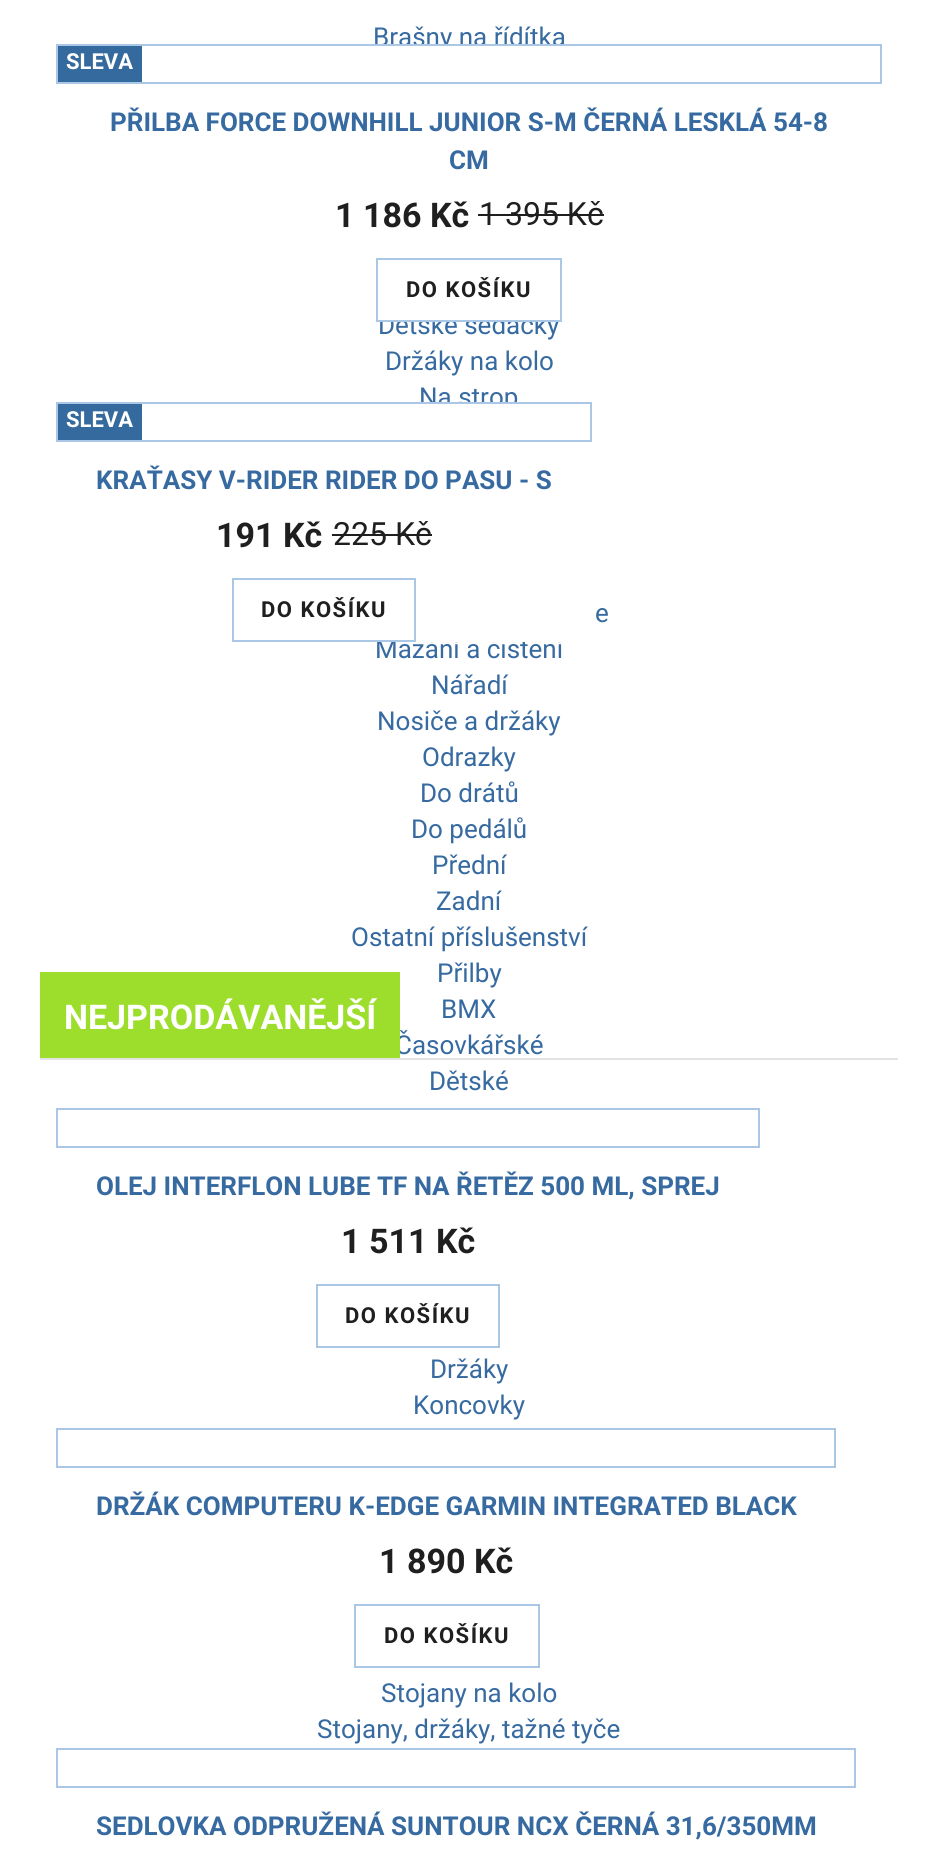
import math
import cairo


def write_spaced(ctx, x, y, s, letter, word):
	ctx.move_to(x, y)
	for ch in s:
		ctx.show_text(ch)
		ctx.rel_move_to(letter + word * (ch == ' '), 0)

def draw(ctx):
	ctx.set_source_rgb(1, 1, 1)
	ctx.paint()
	ctx.select_font_face('Roboto')
	ctx.set_font_size(26)
	ctx.set_source_rgb(0.212, 0.416, 0.627)
	for x, y, s in [
		(373, 46, 'Brašny na řídítka'),
		(378, 334, 'Dětské sedačky'),
		(385, 370, 'Držáky na kolo'),
		(419, 406, 'Na strop'),
		(595, 622, 'e'),
		(375, 658, 'Mazání a čištění'),
		(431, 694, 'Nářadí'),
		(377, 730, 'Nosiče a držáky'),
		(422, 766, 'Odrazky'),
		(420, 802, 'Do drátů'),
		(411, 838, 'Do pedálů'),
		(432, 874, 'Přední'),
		(436, 910, 'Zadní'),
		(351, 946, 'Ostatní příslušenství'),
		(437, 982, 'Přilby'),
		(441, 1018, 'BMX'),
		(395, 1054, 'Časovkářské'),
		(429, 1090, 'Dětské'),
		(430, 1378, 'Držáky'),
		(413, 1414, 'Koncovky'),
		(381, 1702, 'Stojany na kolo'),
		(317, 1738, 'Stojany, držáky, tažné tyče'),
	]:
		ctx.move_to(x, y)
		ctx.show_text(s)
	ctx.set_source_rgb(1, 1, 1)
	ctx.rectangle(380, 46, 180, 276)
	ctx.fill()
	ctx.rectangle(57, 45, 824, 38)
	ctx.set_source_rgb(0.667, 0.78, 0.898)
	ctx.stroke()
	ctx.set_source_rgb(0.208, 0.416, 0.62)
	ctx.rectangle(58, 46, 84, 36)
	ctx.fill()
	ctx.select_font_face('Roboto', cairo.FONT_SLANT_NORMAL, cairo.FONT_WEIGHT_BOLD)
	ctx.set_font_size(22)
	ctx.set_source_rgb(1, 1, 1)
	ctx.move_to(66, 69)
	ctx.show_text('SLEVA')
	ctx.set_font_size(26)
	ctx.set_source_rgb(0.212, 0.416, 0.627)
	ctx.move_to(110, 131)
	ctx.show_text('PŘILBA FORCE DOWNHILL JUNIOR S-M ČERNÁ LESKLÁ 54-8')
	ctx.move_to(449, 169)
	ctx.show_text('CM')
	ctx.set_font_size(34)
	ctx.set_source_rgb(0.122, 0.122, 0.122)
	ctx.move_to(335, 227)
	ctx.show_text('1 186 Kč')
	ctx.select_font_face('Roboto')
	ctx.set_font_size(32)
	ctx.move_to(479, 225)
	ctx.show_text('1 395 Kč')
	ctx.rectangle(478, 214, 126, 2)
	ctx.fill()
	ctx.rectangle(377, 259, 184, 62)
	ctx.set_source_rgb(0.667, 0.78, 0.898)
	ctx.stroke()
	ctx.select_font_face('Roboto', cairo.FONT_SLANT_NORMAL, cairo.FONT_WEIGHT_BOLD)
	ctx.set_font_size(22)
	ctx.set_source_rgb(0.122, 0.122, 0.122)
	write_spaced(ctx, 406, 297, 'DO KOŠÍKU', 1.5, 0)
	ctx.set_source_rgb(1, 1, 1)
	ctx.rectangle(377, 404, 187, 238)
	ctx.fill()
	ctx.rectangle(57, 403, 534, 38)
	ctx.set_source_rgb(0.667, 0.78, 0.898)
	ctx.stroke()
	ctx.set_source_rgb(0.208, 0.416, 0.62)
	ctx.rectangle(58, 404, 84, 36)
	ctx.fill()
	ctx.set_source_rgb(1, 1, 1)
	ctx.move_to(66, 427)
	ctx.show_text('SLEVA')
	ctx.set_font_size(26)
	ctx.set_source_rgb(0.212, 0.416, 0.627)
	ctx.move_to(96, 489)
	ctx.show_text('KRAŤASY V-RIDER RIDER DO PASU - S')
	ctx.set_font_size(34)
	ctx.set_source_rgb(0.122, 0.122, 0.122)
	ctx.move_to(216, 547)
	ctx.show_text('191 Kč')
	ctx.select_font_face('Roboto')
	ctx.set_font_size(32)
	ctx.move_to(333, 545)
	ctx.show_text('225 Kč')
	ctx.rectangle(332, 534, 100, 2)
	ctx.fill()
	ctx.rectangle(233, 579, 182, 62)
	ctx.set_source_rgb(0.667, 0.78, 0.898)
	ctx.stroke()
	ctx.select_font_face('Roboto', cairo.FONT_SLANT_NORMAL, cairo.FONT_WEIGHT_BOLD)
	ctx.set_font_size(22)
	ctx.set_source_rgb(0.122, 0.122, 0.122)
	write_spaced(ctx, 261, 617, 'DO KOŠÍKU', 1.5, 0)
	ctx.set_source_rgb(0.894, 0.89, 0.89)
	ctx.rectangle(40, 1058, 858, 2)
	ctx.fill()
	ctx.set_source_rgb(0.616, 0.871, 0.173)
	ctx.rectangle(40, 972, 360, 86)
	ctx.fill()
	ctx.set_font_size(34)
	ctx.set_source_rgb(1, 1, 1)
	ctx.move_to(64, 1029)
	ctx.show_text('NEJPRODÁVANĚJŠÍ')
	ctx.rectangle(57, 1109, 702, 38)
	ctx.set_source_rgb(0.667, 0.78, 0.898)
	ctx.stroke()
	ctx.set_font_size(26)
	ctx.set_source_rgb(0.212, 0.416, 0.627)
	ctx.move_to(96, 1195)
	ctx.show_text('OLEJ INTERFLON LUBE TF NA ŘETĚZ 500 ML, SPREJ')
	ctx.set_font_size(34)
	ctx.set_source_rgb(0.122, 0.122, 0.122)
	ctx.move_to(341, 1253)
	ctx.show_text('1 511 Kč')
	ctx.rectangle(317, 1285, 182, 62)
	ctx.set_source_rgb(0.667, 0.78, 0.898)
	ctx.stroke()
	ctx.set_font_size(22)
	ctx.set_source_rgb(0.122, 0.122, 0.122)
	write_spaced(ctx, 345, 1323, 'DO KOŠÍKU', 1.5, 0)
	ctx.rectangle(57, 1429, 778, 38)
	ctx.set_source_rgb(0.667, 0.78, 0.898)
	ctx.stroke()
	ctx.set_font_size(26)
	ctx.set_source_rgb(0.212, 0.416, 0.627)
	ctx.move_to(96, 1515)
	ctx.show_text('DRŽÁK COMPUTERU K-EDGE GARMIN INTEGRATED BLACK')
	ctx.set_font_size(34)
	ctx.set_source_rgb(0.122, 0.122, 0.122)
	ctx.move_to(379, 1573)
	ctx.show_text('1 890 Kč')
	ctx.rectangle(355, 1605, 184, 62)
	ctx.set_source_rgb(0.667, 0.78, 0.898)
	ctx.stroke()
	ctx.set_font_size(22)
	ctx.set_source_rgb(0.122, 0.122, 0.122)
	write_spaced(ctx, 384, 1643, 'DO KOŠÍKU', 1.5, 0)
	ctx.rectangle(57, 1749, 798, 38)
	ctx.set_source_rgb(0.667, 0.78, 0.898)
	ctx.stroke()
	ctx.set_font_size(26)
	ctx.set_source_rgb(0.212, 0.416, 0.627)
	ctx.move_to(96, 1835)
	ctx.show_text('SEDLOVKA ODPRUŽENÁ SUNTOUR NCX ČERNÁ 31,6/350MM')


surface = cairo.ImageSurface(cairo.FORMAT_RGB24, 938, 1865)
ctx = cairo.Context(surface)
options = cairo.FontOptions()
options.set_hint_metrics(cairo.HINT_METRICS_OFF)
options.set_hint_style(cairo.HINT_STYLE_NONE)
ctx.set_font_options(options)
ctx.set_miter_limit(4)
draw(ctx)
surface.write_to_png('image.png')
